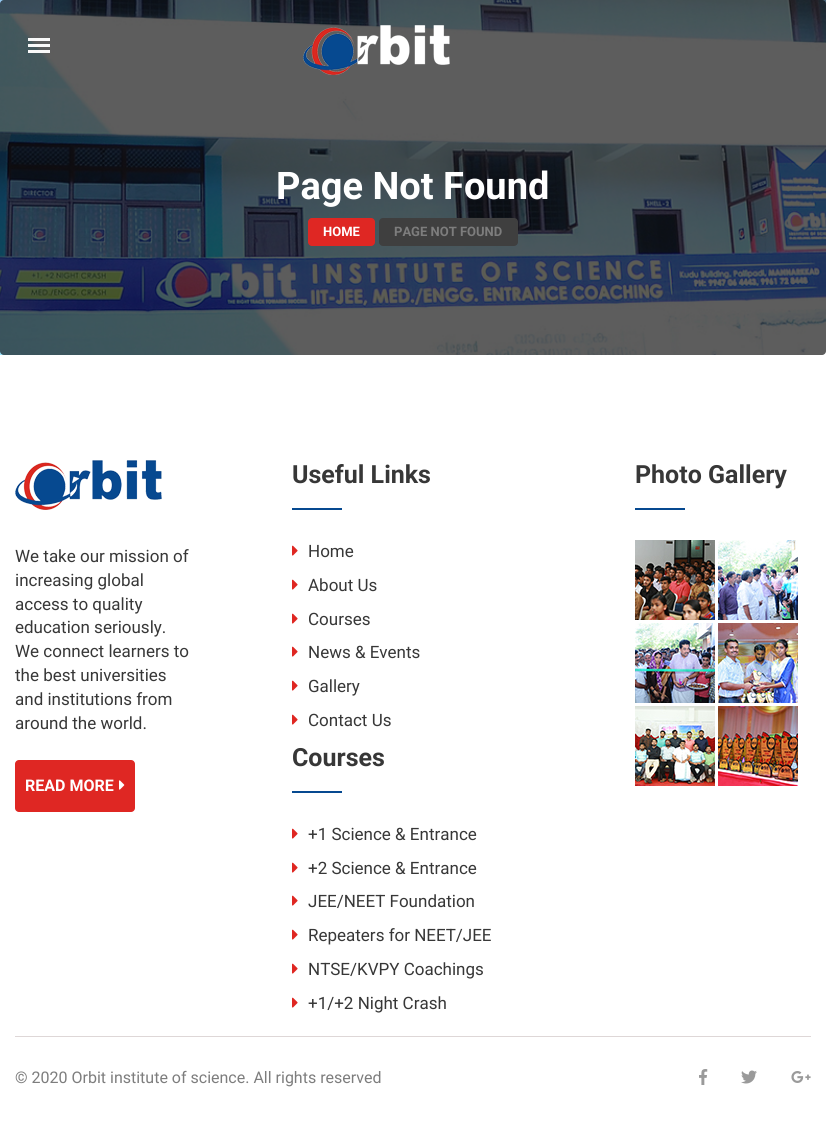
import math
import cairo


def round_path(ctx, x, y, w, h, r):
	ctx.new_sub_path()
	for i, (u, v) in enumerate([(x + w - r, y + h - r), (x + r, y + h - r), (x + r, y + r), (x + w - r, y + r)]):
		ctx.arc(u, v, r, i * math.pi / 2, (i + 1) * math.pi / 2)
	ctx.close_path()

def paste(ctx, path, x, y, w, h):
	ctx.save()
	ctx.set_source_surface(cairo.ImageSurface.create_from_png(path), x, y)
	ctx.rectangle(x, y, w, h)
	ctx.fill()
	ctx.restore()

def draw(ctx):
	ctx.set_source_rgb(1, 1, 1)
	ctx.paint()
	paste(ctx, 'media/2.png', 0, 0, 826, 355)
	ctx.set_source_rgb(0.976, 0.976, 0.976)
	ctx.rectangle(28, 38, 22, 3)
	ctx.rectangle(28, 44, 22, 3)
	ctx.rectangle(28, 50, 22, 3)
	ctx.fill()
	paste(ctx, 'media/1.png', 303, 25, 147, 50)
	ctx.select_font_face('Roboto', cairo.FONT_SLANT_NORMAL, cairo.FONT_WEIGHT_BOLD)
	ctx.set_font_size(38)
	ctx.set_source_rgb(1, 1, 1)
	ctx.move_to(276, 199)
	ctx.show_text('Page Not Found')
	ctx.set_source_rgb(0.875, 0.153, 0.137)
	round_path(ctx, 308, 218, 67, 28, 4)
	ctx.fill()
	ctx.set_font_size(13)
	ctx.set_source_rgb(1, 1, 1)
	ctx.move_to(323, 236)
	ctx.show_text('HOME')
	ctx.set_source_rgb(0.247, 0.247, 0.247)
	round_path(ctx, 379, 218, 139, 28, 4)
	ctx.fill()
	ctx.set_source_rgb(0.49, 0.49, 0.49)
	ctx.move_to(394, 236)
	ctx.show_text('PAGE NOT FOUND')
	ctx.set_font_size(25)
	ctx.set_source_rgb(0.216, 0.216, 0.216)
	ctx.move_to(292, 483)
	ctx.show_text('Useful Links')
	ctx.set_source_rgb(0.024, 0.286, 0.565)
	ctx.rectangle(292, 508, 50, 2)
	ctx.fill()
	paste(ctx, 'media/3.png', 292, 545, 6, 11)
	ctx.select_font_face('Roboto')
	ctx.set_font_size(17)
	ctx.set_source_rgb(0.216, 0.216, 0.216)
	ctx.move_to(308, 557)
	ctx.show_text('Home')
	paste(ctx, 'media/3.png', 292, 579, 6, 11)
	ctx.move_to(308, 591)
	ctx.show_text('About Us')
	paste(ctx, 'media/3.png', 292, 613, 6, 11)
	ctx.move_to(308, 625)
	ctx.show_text('Courses')
	paste(ctx, 'media/3.png', 292, 646, 6, 11)
	ctx.move_to(308, 658)
	ctx.show_text('News & Events')
	paste(ctx, 'media/3.png', 292, 680, 6, 11)
	ctx.move_to(308, 692)
	ctx.show_text('Gallery')
	paste(ctx, 'media/3.png', 292, 714, 6, 11)
	ctx.move_to(308, 726)
	ctx.show_text('Contact Us')
	ctx.select_font_face('Roboto', cairo.FONT_SLANT_NORMAL, cairo.FONT_WEIGHT_BOLD)
	ctx.set_font_size(25)
	ctx.move_to(292, 766)
	ctx.show_text('Courses')
	ctx.set_source_rgb(0.024, 0.286, 0.565)
	ctx.rectangle(292, 791, 50, 2)
	ctx.fill()
	paste(ctx, 'media/3.png', 292, 828, 6, 11)
	ctx.select_font_face('Roboto')
	ctx.set_font_size(17)
	ctx.set_source_rgb(0.216, 0.216, 0.216)
	ctx.move_to(308, 840)
	ctx.show_text('+1 Science & Entrance')
	paste(ctx, 'media/3.png', 292, 862, 6, 11)
	ctx.move_to(308, 874)
	ctx.show_text('+2 Science & Entrance')
	paste(ctx, 'media/3.png', 292, 895, 6, 11)
	ctx.move_to(308, 907)
	ctx.show_text('JEE/NEET Foundation')
	paste(ctx, 'media/3.png', 292, 929, 6, 11)
	ctx.move_to(308, 941)
	ctx.show_text('Repeaters for NEET/JEE')
	paste(ctx, 'media/3.png', 292, 963, 6, 11)
	ctx.move_to(308, 975)
	ctx.show_text('NTSE/KVPY Coachings')
	paste(ctx, 'media/3.png', 292, 997, 6, 11)
	ctx.move_to(308, 1009)
	ctx.show_text('+1/+2 Night Crash')
	ctx.select_font_face('Roboto', cairo.FONT_SLANT_NORMAL, cairo.FONT_WEIGHT_BOLD)
	ctx.set_font_size(25)
	ctx.move_to(635, 483)
	ctx.show_text('Photo Gallery')
	ctx.set_source_rgb(0.024, 0.286, 0.565)
	ctx.rectangle(635, 508, 50, 2)
	ctx.fill()
	paste(ctx, 'media/4.png', 635, 540, 80, 80)
	paste(ctx, 'media/5.png', 718, 540, 80, 80)
	paste(ctx, 'media/6.png', 635, 623, 80, 80)
	paste(ctx, 'media/7.png', 718, 623, 80, 80)
	paste(ctx, 'media/8.png', 635, 706, 80, 80)
	paste(ctx, 'media/9.png', 718, 706, 80, 80)
	paste(ctx, 'media/10.png', 15, 460, 147, 50)
	ctx.select_font_face('Roboto')
	ctx.set_font_size(17)
	ctx.set_source_rgb(0.216, 0.216, 0.216)
	for x, y, s in [
		(15, 562, 'We take our mission of'),
		(15, 586, 'increasing global'),
		(15, 610, 'access to quality'),
		(15, 633, 'education seriously.'),
		(15, 657, 'We connect learners to'),
		(15, 681, 'the best universities'),
		(15, 705, 'and institutions from'),
		(15, 729, 'around the world.'),
	]:
		ctx.move_to(x, y)
		ctx.show_text(s)
	ctx.set_source_rgb(0.875, 0.153, 0.137)
	round_path(ctx, 15, 760, 120, 52, 4)
	ctx.fill()
	ctx.select_font_face('Roboto', cairo.FONT_SLANT_NORMAL, cairo.FONT_WEIGHT_BOLD)
	ctx.set_font_size(16)
	ctx.set_source_rgb(1, 1, 1)
	ctx.move_to(25, 791)
	ctx.show_text('READ MORE')
	paste(ctx, 'media/11.png', 119, 780, 6, 10)
	ctx.set_source_rgb(0.871, 0.843, 0.843)
	ctx.rectangle(15, 1036, 796, 1)
	ctx.fill()
	ctx.select_font_face('Roboto')
	ctx.set_source_rgb(0.49, 0.49, 0.49)
	ctx.move_to(15, 1083)
	ctx.show_text('© 2020 Orbit institute of science. All rights reserved')
	paste(ctx, 'media/12.png', 699, 1069, 9, 16)
	paste(ctx, 'media/13.png', 741, 1070, 16, 14)
	paste(ctx, 'media/14.png', 791, 1071, 20, 12)


surface = cairo.ImageSurface(cairo.FORMAT_RGB24, 826, 1121)
ctx = cairo.Context(surface)
options = cairo.FontOptions()
options.set_hint_metrics(cairo.HINT_METRICS_OFF)
options.set_hint_style(cairo.HINT_STYLE_NONE)
ctx.set_font_options(options)
ctx.set_miter_limit(4)
draw(ctx)
surface.write_to_png('image.png')
